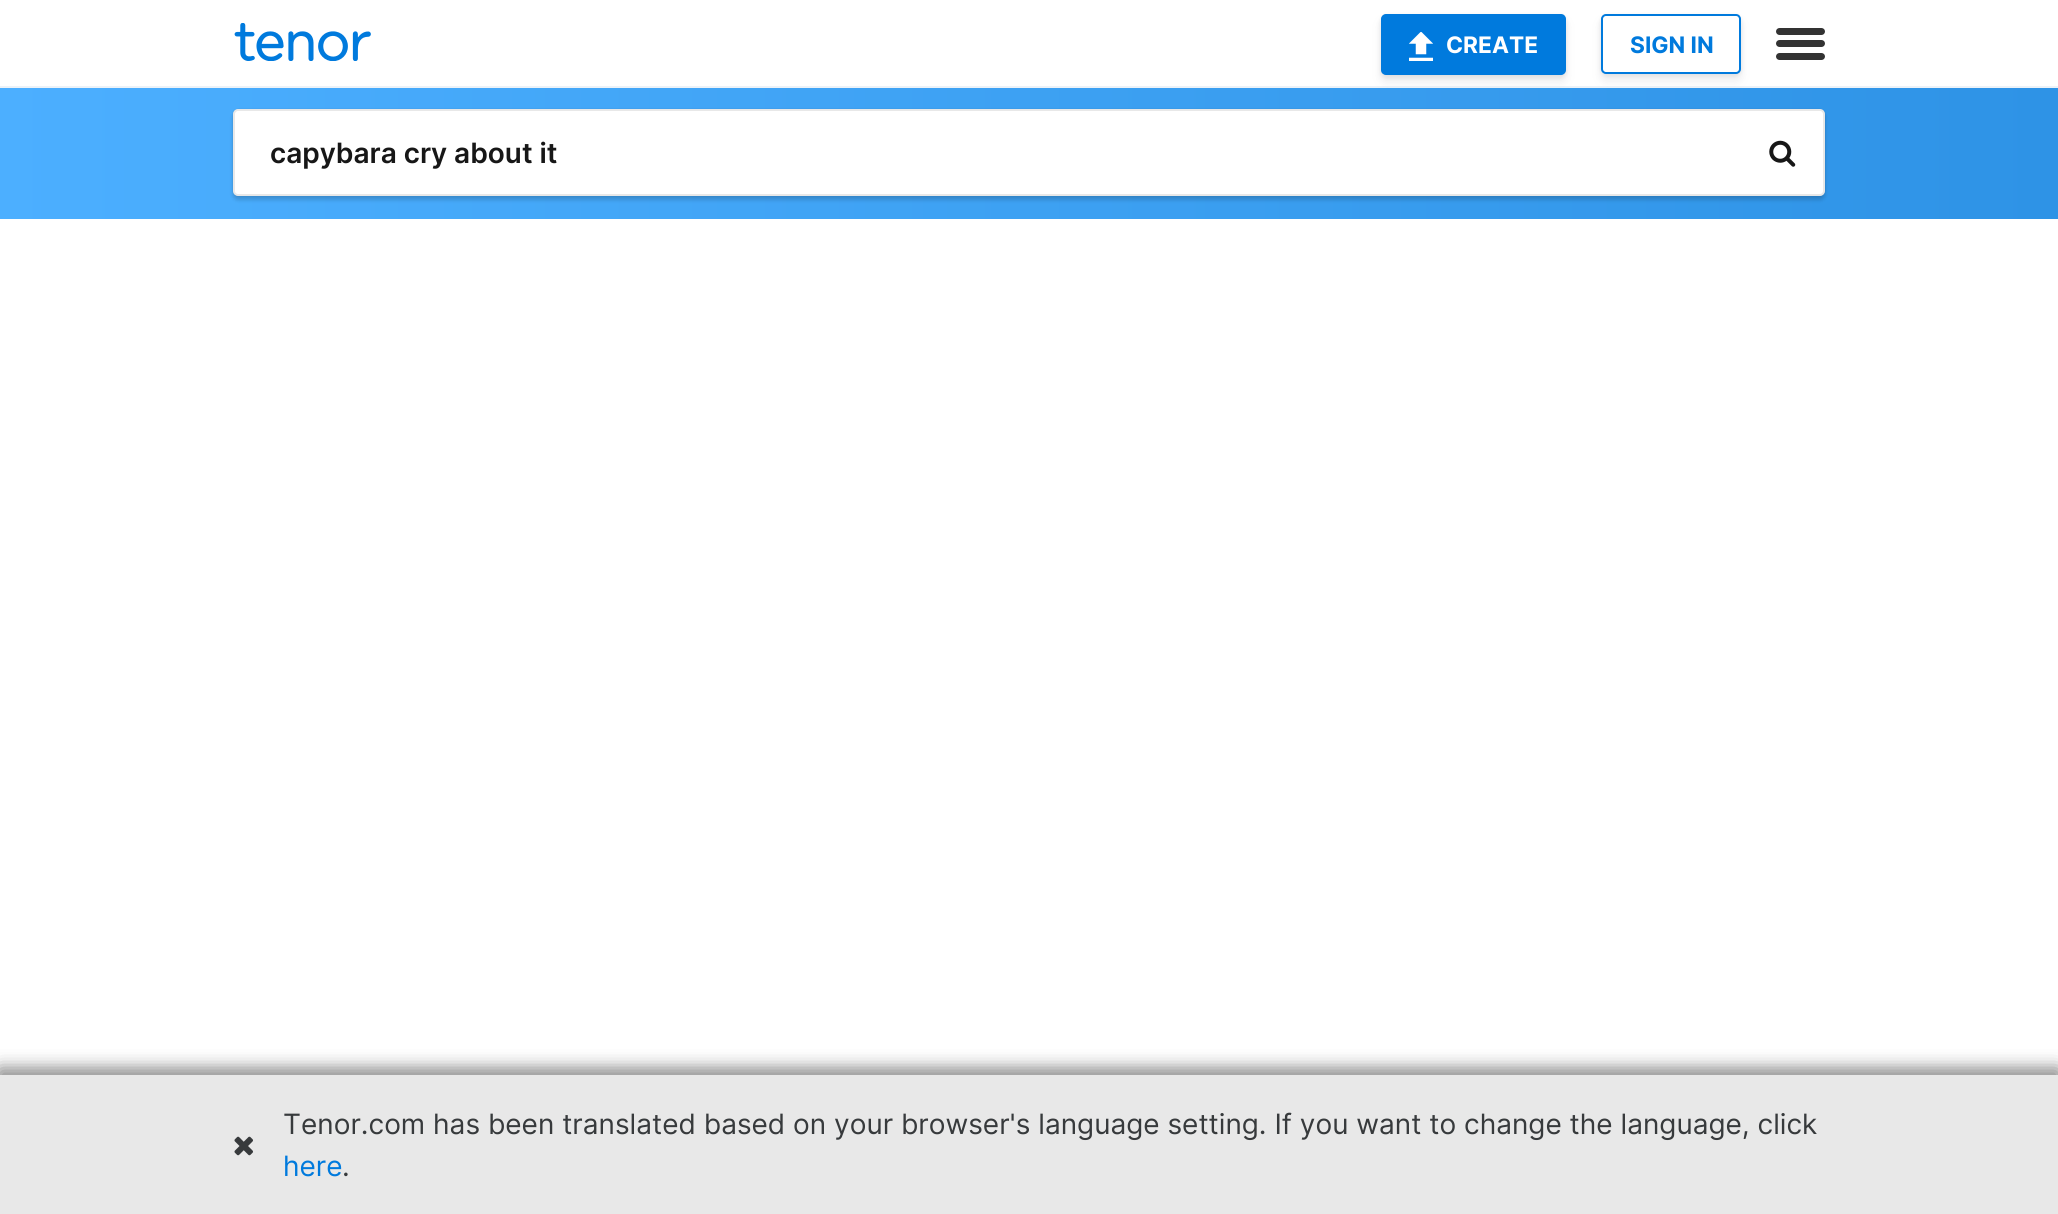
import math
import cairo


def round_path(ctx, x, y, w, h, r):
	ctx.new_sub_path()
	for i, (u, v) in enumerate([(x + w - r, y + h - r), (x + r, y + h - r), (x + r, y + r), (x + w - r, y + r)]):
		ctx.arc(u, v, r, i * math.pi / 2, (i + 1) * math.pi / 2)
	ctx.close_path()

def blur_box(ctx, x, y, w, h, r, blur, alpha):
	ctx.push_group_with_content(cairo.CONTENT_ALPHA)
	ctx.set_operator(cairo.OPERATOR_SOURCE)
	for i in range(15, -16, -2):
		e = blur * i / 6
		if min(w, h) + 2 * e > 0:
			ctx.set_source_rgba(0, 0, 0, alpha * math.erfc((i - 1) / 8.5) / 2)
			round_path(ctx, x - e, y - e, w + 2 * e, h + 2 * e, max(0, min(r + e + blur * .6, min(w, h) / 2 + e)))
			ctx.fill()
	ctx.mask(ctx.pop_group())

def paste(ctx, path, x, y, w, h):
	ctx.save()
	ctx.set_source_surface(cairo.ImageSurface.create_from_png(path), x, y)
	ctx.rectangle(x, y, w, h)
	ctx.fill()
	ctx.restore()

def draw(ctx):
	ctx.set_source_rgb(1, 1, 1)
	ctx.paint()
	ctx.set_source_rgb(0.922, 0.949, 0.969)
	ctx.rectangle(0, 86, 2058, 2)
	ctx.fill()
	paste(ctx, 'media/1.png', 234, 23, 137, 38)
	ctx.set_source_rgb(0.325, 0.325, 0.361)
	blur_box(ctx, 1381, 21, 185, 61, 5, 5, 0.11)
	ctx.set_source_rgb(0, 0, 0)
	blur_box(ctx, 1381, 16, 185, 61, 5, 2.5, 0.08)
	ctx.set_source_rgb(0, 0.478, 0.867)
	round_path(ctx, 1382, 15, 183, 59, 4)
	ctx.fill_preserve()
	ctx.stroke()
	paste(ctx, 'media/2.png', 1409, 32, 24, 29)
	ctx.select_font_face('Inter', cairo.FONT_SLANT_NORMAL, cairo.FONT_WEIGHT_BOLD)
	ctx.set_font_size(22.75)
	ctx.set_source_rgb(1, 1, 1)
	ctx.move_to(1446, 53)
	ctx.show_text('CREATE')
	ctx.set_source_rgb(0.325, 0.325, 0.361)
	blur_box(ctx, 1601, 21, 140, 60, 5, 5, 0.11)
	ctx.set_source_rgb(0, 0, 0)
	blur_box(ctx, 1601, 16, 140, 59, 5, 2.5, 0.08)
	ctx.set_source_rgb(1, 1, 1)
	round_path(ctx, 1602, 15, 138, 58, 4)
	ctx.fill_preserve()
	ctx.set_source_rgb(0, 0.478, 0.867)
	ctx.stroke()
	ctx.move_to(1630, 53)
	ctx.show_text('SIGN IN')
	ctx.set_source_rgb(0.2, 0.2, 0.2)
	round_path(ctx, 1776, 40, 49, 7, 3.5)
	ctx.fill()
	round_path(ctx, 1776, 28, 49, 7, 3.5)
	ctx.fill()
	round_path(ctx, 1776, 53, 49, 7, 3.5)
	ctx.fill()
	gradient = cairo.LinearGradient(0, 153, 2058, 153)
	gradient.add_color_stop_rgba(0, 0.298, 0.686, 1, 1)
	gradient.add_color_stop_rgba(1, 0.18, 0.576, 0.902, 1)
	ctx.set_source(gradient)
	ctx.rectangle(0, 88, 2058, 131)
	ctx.fill()
	ctx.set_source_rgb(0, 0, 0)
	blur_box(ctx, 233, 109, 1592, 87, 5, 1, 0.08)
	blur_box(ctx, 233, 112, 1592, 88, 5, 2, 0.16)
	ctx.set_source_rgb(1, 1, 1)
	round_path(ctx, 234, 110, 1590, 85, 4)
	ctx.fill_preserve()
	ctx.set_source_rgb(0.91, 0.91, 0.91)
	ctx.stroke()
	ctx.select_font_face('Inter SemiBold')
	ctx.set_font_size(28)
	ctx.set_source_rgb(0.09, 0.09, 0.09)
	ctx.move_to(270, 163)
	ctx.show_text('capybara cry about it')
	paste(ctx, 'media/3.png', 1769, 140, 27, 27)
	ctx.set_source_rgb(0.6, 0.6, 0.6)
	blur_box(ctx, 0, 1071, 2058, 140, 0, 9, 1)
	blur_box(ctx, 0, 1071, 2058, 140, 0, 9, 1)
	ctx.set_source_rgb(0.91, 0.91, 0.91)
	ctx.rectangle(0, 1075, 2058, 139)
	ctx.fill()
	paste(ctx, 'media/4.png', 234, 1136, 19, 20)
	ctx.select_font_face('Inter')
	ctx.set_source_rgb(0.216, 0.227, 0.235)
	ctx.move_to(283, 1134)
	ctx.show_text('Tenor.com has been translated based on your browser\'s language setting. If you want to change the language, click')
	ctx.set_source_rgb(0, 0.478, 0.867)
	ctx.move_to(283, 1176)
	ctx.show_text('here')
	ctx.set_source_rgb(0.216, 0.227, 0.235)
	ctx.move_to(342, 1176)
	ctx.show_text('.')


surface = cairo.ImageSurface(cairo.FORMAT_RGB24, 2058, 1214)
ctx = cairo.Context(surface)
options = cairo.FontOptions()
options.set_hint_metrics(cairo.HINT_METRICS_OFF)
options.set_hint_style(cairo.HINT_STYLE_NONE)
ctx.set_font_options(options)
ctx.set_miter_limit(4)
draw(ctx)
surface.write_to_png('image.png')
